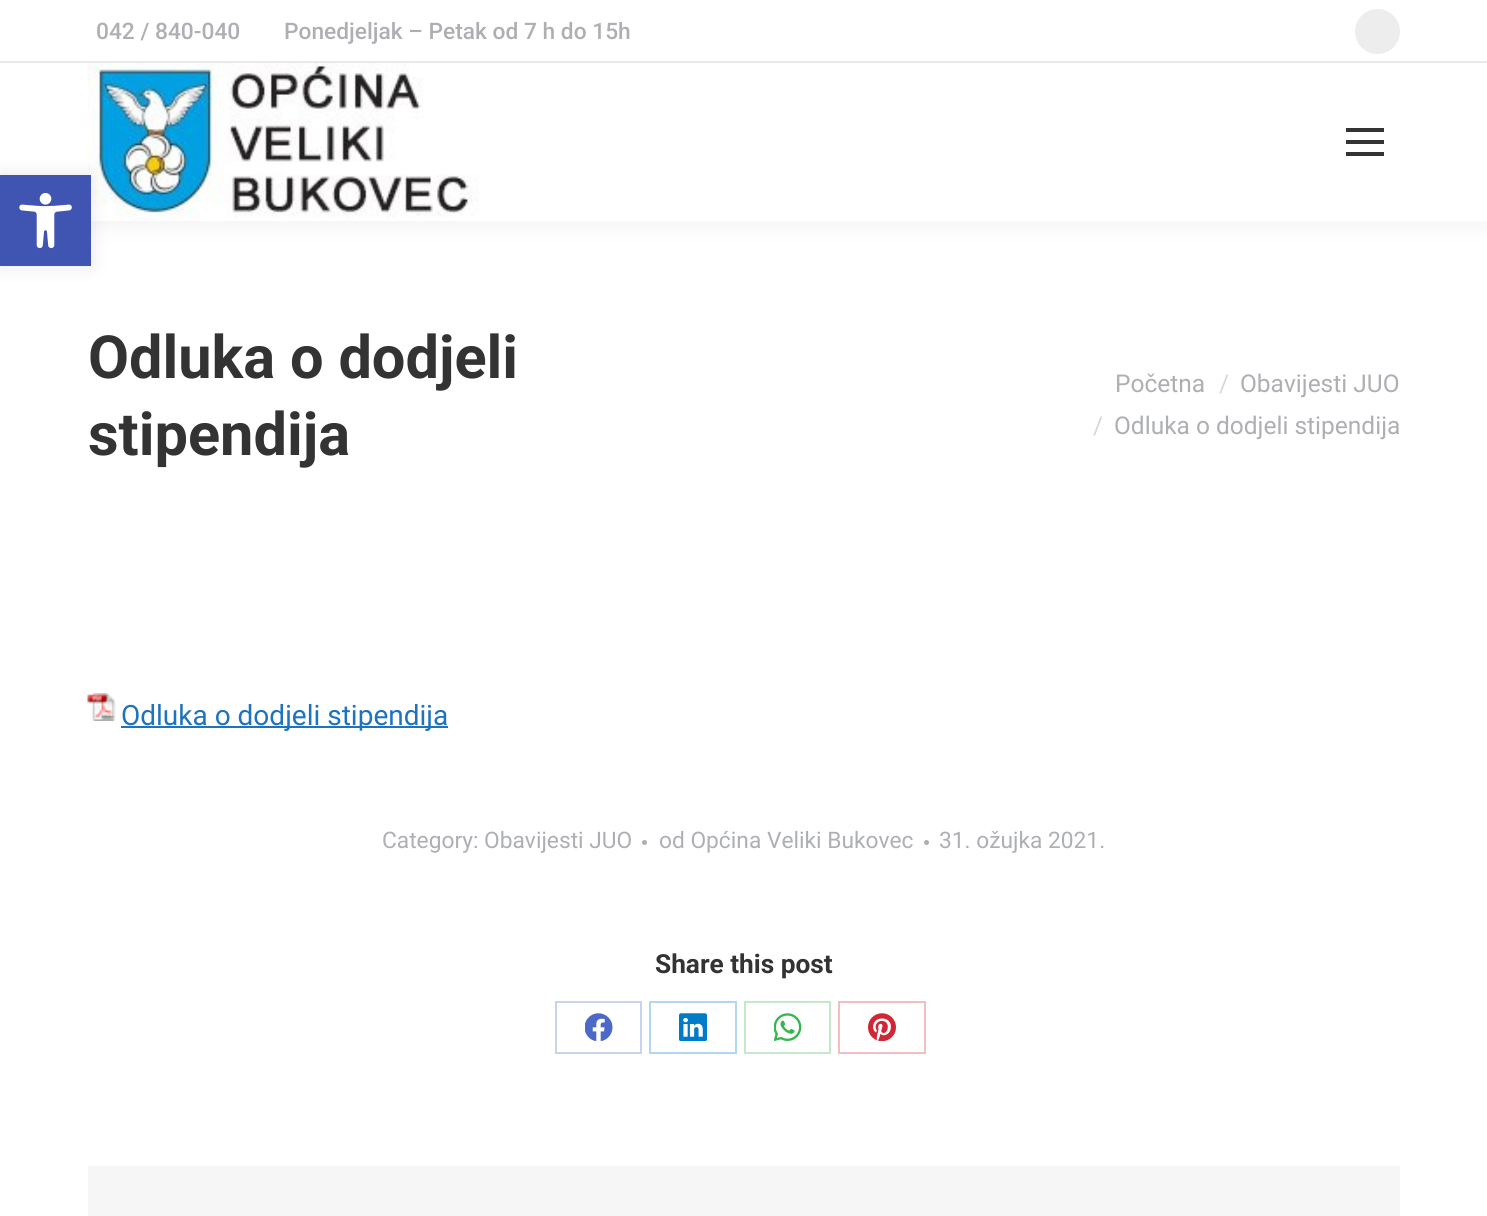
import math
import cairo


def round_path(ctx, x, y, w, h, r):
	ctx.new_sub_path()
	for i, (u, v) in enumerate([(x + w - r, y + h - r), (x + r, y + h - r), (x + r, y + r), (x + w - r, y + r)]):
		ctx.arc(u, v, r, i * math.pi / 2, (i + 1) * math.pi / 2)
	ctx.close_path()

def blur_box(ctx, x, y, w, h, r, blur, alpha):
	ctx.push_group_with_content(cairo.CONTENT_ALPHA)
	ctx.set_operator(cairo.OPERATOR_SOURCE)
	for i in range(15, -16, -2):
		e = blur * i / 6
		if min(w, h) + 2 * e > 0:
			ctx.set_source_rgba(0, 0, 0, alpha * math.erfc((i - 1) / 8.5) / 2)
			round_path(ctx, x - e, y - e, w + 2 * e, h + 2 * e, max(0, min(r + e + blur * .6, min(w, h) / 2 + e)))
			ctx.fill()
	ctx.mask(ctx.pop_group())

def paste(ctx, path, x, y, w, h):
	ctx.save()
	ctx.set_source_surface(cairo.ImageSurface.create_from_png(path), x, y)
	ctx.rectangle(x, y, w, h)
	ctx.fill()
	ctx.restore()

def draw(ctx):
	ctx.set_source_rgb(1, 1, 1)
	ctx.paint()
	ctx.set_source_rgb(0, 0, 0)
	blur_box(ctx, -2, -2, 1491, 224, 0, 13, 0.07)
	ctx.set_source_rgb(1, 1, 1)
	ctx.rectangle(0, 0, 1487, 221)
	ctx.fill()
	paste(ctx, 'media/2.png', 87, 63, 392, 158)
	ctx.set_source_rgb(0, 0, 0)
	blur_box(ctx, 0, 175, 91, 91, 0, 9, 0.1)
	ctx.set_source_rgb(0.251, 0.329, 0.698)
	ctx.rectangle(0, 175, 91, 91)
	ctx.fill()
	paste(ctx, 'media/1.png', 19, 193, 53, 56)
	ctx.select_font_face('Roboto Medium')
	ctx.set_font_size(22.75)
	ctx.set_source_rgb(0.678, 0.686, 0.702)
	ctx.move_to(96, 39)
	ctx.show_text('042 / 840-040')
	ctx.move_to(284, 39)
	ctx.show_text('Ponedjeljak – Petak od 7 h do 15h')
	ctx.set_source_rgb(0.929, 0.929, 0.929)
	ctx.new_path()
	ctx.arc(1377.5, 31.5, 22.5, 0, 2 * math.pi)
	ctx.fill()
	ctx.set_source_rgb(0.914, 0.914, 0.914)
	ctx.rectangle(0, 61, 1487, 2)
	ctx.fill()
	ctx.set_source_rgb(0.2, 0.2, 0.2)
	ctx.rectangle(1346, 128, 38, 4)
	ctx.rectangle(1346, 140, 38, 4)
	ctx.rectangle(1346, 152, 38, 4)
	ctx.fill()
	ctx.select_font_face('Roboto', cairo.FONT_SLANT_NORMAL, cairo.FONT_WEIGHT_BOLD)
	ctx.set_font_size(59.5)
	ctx.move_to(88, 378)
	ctx.show_text('Odluka o dodjeli')
	ctx.move_to(88, 455)
	ctx.show_text('stipendija')
	ctx.select_font_face('Roboto')
	ctx.set_font_size(24.5)
	ctx.set_source_rgb(0.678, 0.686, 0.702)
	ctx.move_to(1115, 392)
	ctx.show_text('Početna')
	ctx.set_source_rgb(0.839, 0.843, 0.851)
	ctx.move_to(1219, 392)
	ctx.show_text('/')
	ctx.set_source_rgb(0.678, 0.686, 0.702)
	ctx.move_to(1240, 392)
	ctx.show_text('Obavijesti JUO')
	ctx.set_source_rgb(0.839, 0.843, 0.851)
	ctx.move_to(1093, 434)
	ctx.show_text('/')
	ctx.set_source_rgb(0.678, 0.686, 0.702)
	ctx.move_to(1114, 434)
	ctx.show_text('Odluka o dodjeli stipendija')
	paste(ctx, 'media/3.png', 87, 693, 29, 28)
	ctx.set_source_rgb(0.118, 0.451, 0.745)
	ctx.rectangle(121, 726, 327, 2)
	ctx.fill()
	ctx.set_font_size(28)
	ctx.move_to(121, 725)
	ctx.show_text('Odluka o dodjeli stipendija')
	ctx.set_font_size(22.75)
	ctx.set_source_rgb(0.678, 0.686, 0.702)
	ctx.move_to(382, 848)
	ctx.show_text('Category: Obavijesti JUO')
	ctx.new_path()
	ctx.arc(644.5, 842.5, 2.5, 0, 2 * math.pi)
	ctx.fill()
	ctx.move_to(659, 848)
	ctx.show_text('od Općina Veliki Bukovec')
	ctx.new_path()
	ctx.arc(926.5, 842.5, 2.5, 0, 2 * math.pi)
	ctx.fill()
	ctx.move_to(939, 848)
	ctx.show_text('31. ožujka 2021.')
	ctx.select_font_face('Roboto', cairo.FONT_SLANT_NORMAL, cairo.FONT_WEIGHT_BOLD)
	ctx.set_font_size(26.25)
	ctx.set_source_rgb(0.2, 0.2, 0.2)
	ctx.move_to(655, 973)
	ctx.show_text('Share this post')
	ctx.rectangle(556, 1002, 85, 51)
	ctx.set_source_rgb(0.788, 0.824, 0.933)
	ctx.stroke()
	paste(ctx, 'media/4.png', 585, 1013, 28, 28)
	ctx.rectangle(650, 1002, 86, 51)
	ctx.set_source_rgb(0.702, 0.843, 0.933)
	ctx.stroke()
	paste(ctx, 'media/5.png', 679, 1013, 28, 28)
	ctx.rectangle(745, 1002, 85, 51)
	ctx.set_source_rgb(0.765, 0.914, 0.792)
	ctx.stroke()
	paste(ctx, 'media/6.png', 774, 1013, 28, 28)
	ctx.rectangle(839, 1002, 86, 51)
	ctx.set_source_rgb(0.945, 0.749, 0.761)
	ctx.stroke()
	paste(ctx, 'media/7.png', 868, 1013, 28, 28)
	ctx.set_source_rgb(0.961, 0.961, 0.961)
	ctx.rectangle(88, 1166, 1312, 50)
	ctx.fill()


surface = cairo.ImageSurface(cairo.FORMAT_RGB24, 1487, 1216)
ctx = cairo.Context(surface)
options = cairo.FontOptions()
options.set_hint_metrics(cairo.HINT_METRICS_OFF)
options.set_hint_style(cairo.HINT_STYLE_NONE)
ctx.set_font_options(options)
ctx.set_miter_limit(4)
draw(ctx)
surface.write_to_png('image.png')
